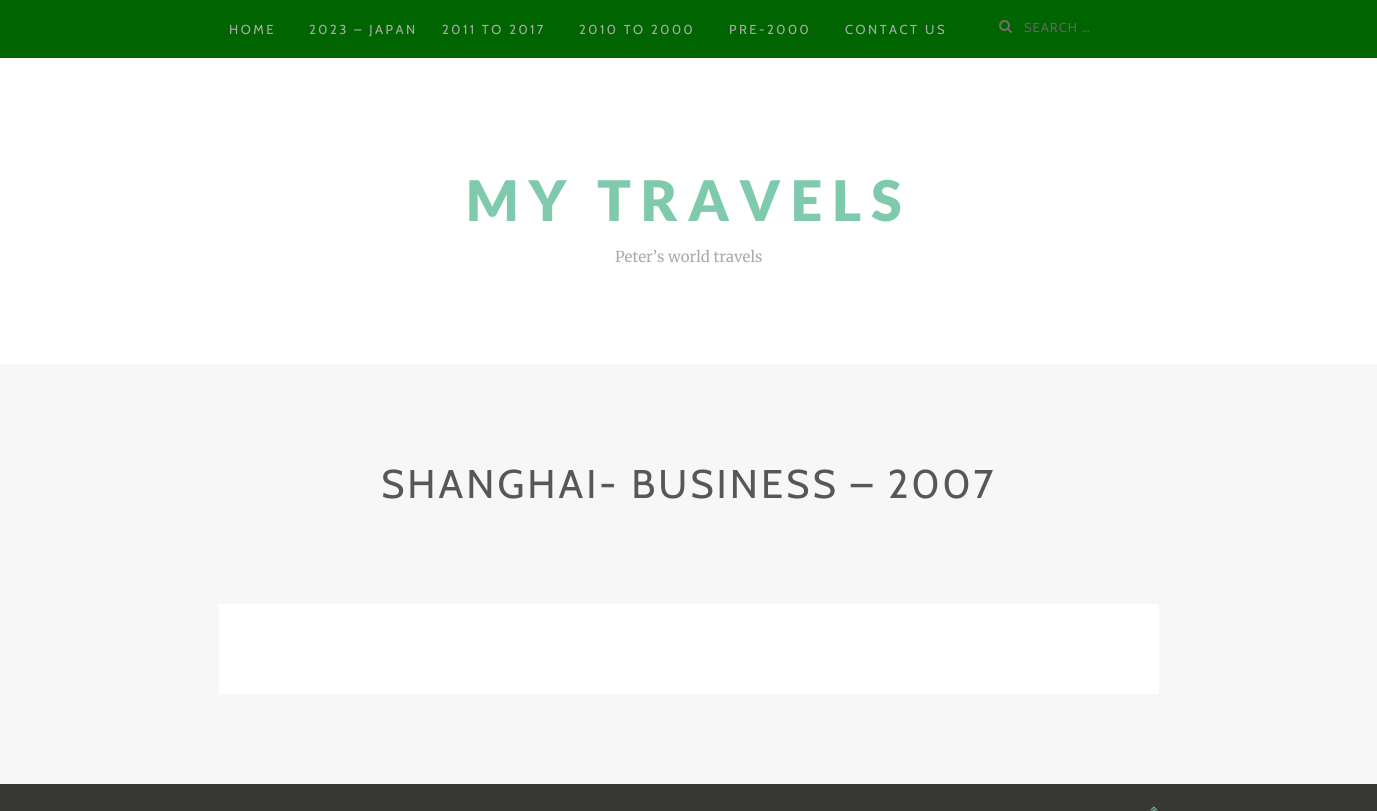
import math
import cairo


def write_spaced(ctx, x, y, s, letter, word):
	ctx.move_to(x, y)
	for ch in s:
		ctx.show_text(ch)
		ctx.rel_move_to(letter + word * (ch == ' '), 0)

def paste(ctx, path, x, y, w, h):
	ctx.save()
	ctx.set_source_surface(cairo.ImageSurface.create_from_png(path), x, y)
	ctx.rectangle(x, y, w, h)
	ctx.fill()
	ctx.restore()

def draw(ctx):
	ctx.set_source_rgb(0.965, 0.965, 0.965)
	ctx.paint()
	ctx.set_source_rgb(0, 0.392, 0)
	ctx.rectangle(0, 0, 1377, 58)
	ctx.fill()
	ctx.select_font_face('Cabin')
	ctx.set_font_size(13)
	ctx.set_source_rgb(0.667, 0.667, 0.667)
	for x, y, s in [
		(229, 34, 'HOME'),
		(309, 34, '2023 – JAPAN'),
		(442, 34, '2011 TO 2017'),
		(579, 34, '2010 TO 2000'),
		(729, 34, 'PRE-2000'),
		(845, 34, 'CONTACT US'),
	]:
		write_spaced(ctx, x, y, s, 2.5, 0)
	paste(ctx, 'media/1.png', 999, 20, 13, 13)
	ctx.set_source_rgb(0.388, 0.388, 0.388)
	write_spaced(ctx, 1024, 32, 'SEARCH …', 1, 0)
	ctx.set_source_rgb(1, 1, 1)
	ctx.rectangle(0, 58, 1377, 306)
	ctx.fill()
	ctx.select_font_face('Lato Black')
	ctx.set_font_size(56)
	ctx.set_source_rgb(0.498, 0.792, 0.678)
	write_spaced(ctx, 466, 221, 'MY TRAVELS', 10, 0)
	ctx.select_font_face('Merriweather')
	ctx.set_font_size(15)
	ctx.set_source_rgb(0.667, 0.667, 0.667)
	ctx.move_to(615, 262)
	ctx.show_text('Peter’s world travels')
	ctx.select_font_face('Cabin')
	ctx.set_font_size(40)
	ctx.set_source_rgb(0.341, 0.341, 0.337)
	write_spaced(ctx, 381, 498, 'SHANGHAI- BUSINESS – 2007', 3, 0)
	ctx.set_source_rgb(1, 1, 1)
	ctx.rectangle(219, 604, 940, 90)
	ctx.fill()
	ctx.set_source_rgb(0.216, 0.216, 0.208)
	ctx.rectangle(0, 784, 1377, 27)
	ctx.fill()
	paste(ctx, 'media/2.png', 1150, 806, 8, 5)


surface = cairo.ImageSurface(cairo.FORMAT_RGB24, 1377, 811)
ctx = cairo.Context(surface)
options = cairo.FontOptions()
options.set_hint_metrics(cairo.HINT_METRICS_OFF)
options.set_hint_style(cairo.HINT_STYLE_NONE)
ctx.set_font_options(options)
ctx.set_miter_limit(4)
draw(ctx)
surface.write_to_png('image.png')
